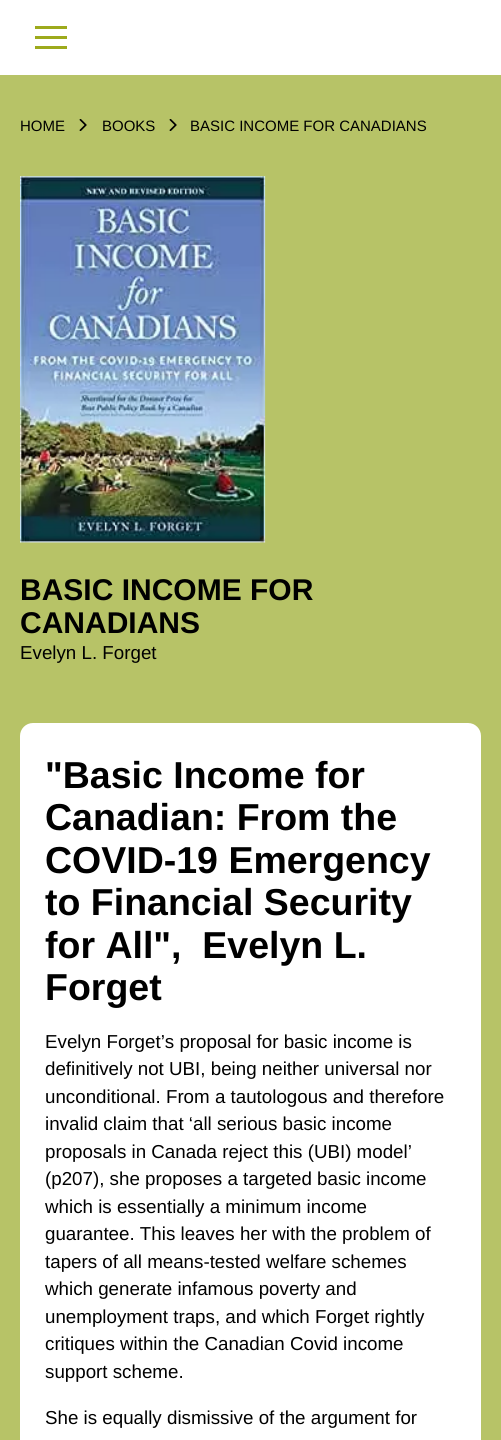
import math
import cairo


def round_path(ctx, x, y, w, h, r):
	ctx.new_sub_path()
	for i, (u, v) in enumerate([(x + w - r, y + h - r), (x + r, y + h - r), (x + r, y + r), (x + w - r, y + r)]):
		ctx.arc(u, v, r, i * math.pi / 2, (i + 1) * math.pi / 2)
	ctx.close_path()

def paste(ctx, path, x, y, w, h):
	ctx.save()
	ctx.set_source_surface(cairo.ImageSurface.create_from_png(path), x, y)
	ctx.rectangle(x, y, w, h)
	ctx.fill()
	ctx.restore()

def draw(ctx):
	ctx.set_source_rgb(0.718, 0.765, 0.404)
	ctx.paint()
	ctx.set_source_rgb(1, 1, 1)
	ctx.rectangle(0, 0, 501, 75)
	ctx.fill()
	ctx.set_source_rgb(0.616, 0.667, 0.11)
	ctx.rectangle(35, 26, 32, 3)
	ctx.rectangle(35, 36, 32, 3)
	ctx.rectangle(35, 46, 32, 3)
	ctx.fill()
	ctx.select_font_face('Liberation Sans')
	ctx.set_font_size(15)
	ctx.set_source_rgb(0, 0, 0)
	ctx.move_to(20, 131)
	ctx.show_text('HOME')
	paste(ctx, 'media/1.png', 79, 119, 8, 12)
	ctx.move_to(102, 131)
	ctx.show_text('BOOKS')
	paste(ctx, 'media/1.png', 169, 119, 8, 12)
	ctx.move_to(190, 131)
	ctx.show_text('BASIC INCOME FOR CANADIANS')
	paste(ctx, 'media/2.png', 20, 176, 246, 367)
	ctx.select_font_face('Liberation Sans', cairo.FONT_SLANT_NORMAL, cairo.FONT_WEIGHT_BOLD)
	ctx.set_font_size(30)
	ctx.move_to(20, 600)
	ctx.show_text('BASIC INCOME FOR')
	ctx.move_to(20, 633)
	ctx.show_text('CANADIANS')
	ctx.select_font_face('Liberation Sans')
	ctx.set_font_size(18.75)
	ctx.move_to(20, 659)
	ctx.show_text('Evelyn L. Forget')
	ctx.set_source_rgb(1, 1, 1)
	round_path(ctx, 20, 723, 461, 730, 13)
	ctx.fill()
	ctx.select_font_face('Liberation Sans', cairo.FONT_SLANT_NORMAL, cairo.FONT_WEIGHT_BOLD)
	ctx.set_font_size(37.5)
	ctx.set_source_rgb(0, 0, 0)
	for x, y, s in [
		(45, 788, '"Basic Income for'),
		(45, 830, 'Canadian: From the'),
		(45, 873, 'COVID-19 Emergency'),
		(45, 915, 'to Financial Security'),
		(45, 958, 'for All",  Evelyn L.'),
		(45, 1000, 'Forget'),
	]:
		ctx.move_to(x, y)
		ctx.show_text(s)
	ctx.select_font_face('Liberation Sans')
	ctx.set_font_size(18.75)
	for x, y, s in [
		(45, 1048, 'Evelyn Forget’s proposal for basic income is'),
		(45, 1075, 'definitively not UBI, being neither universal nor'),
		(45, 1103, 'unconditional. From a tautologous and therefore'),
		(45, 1130, 'invalid claim that ‘all serious basic income'),
		(45, 1158, 'proposals in Canada reject this (UBI) model’'),
		(45, 1185, '(p207), she proposes a targeted basic income'),
		(45, 1213, 'which is essentially a minimum income'),
		(45, 1240, 'guarantee. This leaves her with the problem of'),
		(45, 1268, 'tapers of all means-tested welfare schemes'),
		(45, 1295, 'which generate infamous poverty and'),
		(45, 1323, 'unemployment traps, and which Forget rightly'),
		(45, 1350, 'critiques within the Canadian Covid income'),
		(45, 1378, 'support scheme.'),
		(45, 1424, 'She is equally dismissive of the argument for'),
	]:
		ctx.move_to(x, y)
		ctx.show_text(s)


surface = cairo.ImageSurface(cairo.FORMAT_RGB24, 501, 1440)
ctx = cairo.Context(surface)
options = cairo.FontOptions()
options.set_hint_metrics(cairo.HINT_METRICS_OFF)
options.set_hint_style(cairo.HINT_STYLE_NONE)
ctx.set_font_options(options)
ctx.set_miter_limit(4)
draw(ctx)
surface.write_to_png('image.png')
